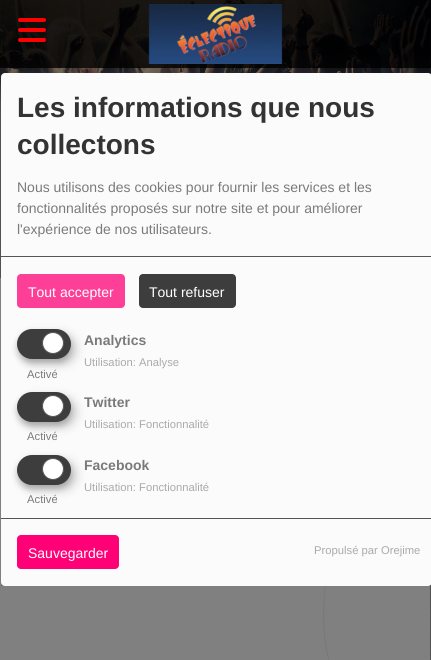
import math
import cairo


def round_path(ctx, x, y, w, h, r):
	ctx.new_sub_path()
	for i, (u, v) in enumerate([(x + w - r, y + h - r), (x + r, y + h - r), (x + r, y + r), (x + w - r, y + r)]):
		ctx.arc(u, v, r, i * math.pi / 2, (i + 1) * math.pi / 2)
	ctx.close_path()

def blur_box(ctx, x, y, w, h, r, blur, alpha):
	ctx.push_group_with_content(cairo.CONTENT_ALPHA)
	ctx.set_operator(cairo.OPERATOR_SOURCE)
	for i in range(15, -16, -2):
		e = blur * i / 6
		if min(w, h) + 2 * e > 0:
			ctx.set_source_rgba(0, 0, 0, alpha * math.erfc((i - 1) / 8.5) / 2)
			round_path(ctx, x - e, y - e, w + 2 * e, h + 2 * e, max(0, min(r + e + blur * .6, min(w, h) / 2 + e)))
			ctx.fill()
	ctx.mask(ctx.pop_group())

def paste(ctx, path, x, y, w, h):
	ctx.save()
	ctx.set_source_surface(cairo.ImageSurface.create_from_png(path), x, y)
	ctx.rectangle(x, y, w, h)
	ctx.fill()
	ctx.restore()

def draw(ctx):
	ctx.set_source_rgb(1, 1, 1)
	ctx.paint()
	paste(ctx, 'media/3.png', 0, 0, 431, 660)
	paste(ctx, 'media/4.png', 0, 0, 431, 112)
	ctx.set_source_rgb(0.502, 0.502, 0.502)
	ctx.rectangle(0, 278, 430, 382)
	ctx.fill()
	round_path(ctx, 323.5, 427.5, 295, 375, 186.5)
	ctx.set_source_rgb(0.471, 0.471, 0.471)
	ctx.set_line_width(1)
	ctx.stroke()
	ctx.save()
	ctx.rectangle(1, 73, 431, 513)
	ctx.clip()
	ctx.set_source_rgb(0, 0, 0)
	blur_box(ctx, 6, 78, 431, 513, 4, 5, 0.19)
	blur_box(ctx, 1, 77, 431, 513, 4, 3, 0.2)
	ctx.restore()
	ctx.set_source_rgba(0, 0, 0, 0.8)
	ctx.rectangle(0, 0, 431, 68)
	ctx.fill()
	paste(ctx, 'media/1.png', 18, 18, 28, 24)
	paste(ctx, 'media/2.png', 148, 4, 135, 60)
	ctx.set_source_rgb(0.984, 0.984, 0.984)
	round_path(ctx, 1, 73, 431, 513, 4)
	ctx.fill()
	ctx.set_source_rgb(0.333, 0.333, 0.333)
	ctx.rectangle(1, 256, 430, 1)
	ctx.fill()
	ctx.select_font_face('Liberation Sans', cairo.FONT_SLANT_NORMAL, cairo.FONT_WEIGHT_BOLD)
	ctx.set_font_size(28)
	ctx.set_source_rgb(0.2, 0.2, 0.2)
	ctx.move_to(17, 117)
	ctx.show_text('Les informations que nous')
	ctx.move_to(17, 154)
	ctx.show_text('collectons')
	ctx.select_font_face('Liberation Sans')
	ctx.set_font_size(14)
	ctx.set_source_rgb(0.478, 0.478, 0.478)
	for x, y, s in [
		(17, 192, 'Nous utilisons des cookies pour fournir les services et les'),
		(17, 213, 'fonctionnalités proposés sur notre site et pour améliorer'),
		(17, 234, 'l\'expérience de nos utilisateurs.'),
	]:
		ctx.move_to(x, y)
		ctx.show_text(s)
	ctx.set_source_rgb(0.996, 0.247, 0.596)
	round_path(ctx, 17, 274, 108, 34, 4)
	ctx.fill()
	ctx.set_source_rgb(1, 1, 1)
	ctx.move_to(28, 297)
	ctx.show_text('Tout accepter')
	ctx.set_source_rgb(0.243, 0.239, 0.239)
	round_path(ctx, 139, 274, 97, 34, 4)
	ctx.fill()
	ctx.set_source_rgb(1, 1, 1)
	ctx.move_to(149, 297)
	ctx.show_text('Tout refuser')
	ctx.select_font_face('Liberation Sans', cairo.FONT_SLANT_NORMAL, cairo.FONT_WEIGHT_BOLD)
	ctx.set_source_rgb(0.478, 0.478, 0.478)
	ctx.move_to(84, 345)
	ctx.show_text('Analytics')
	ctx.set_source_rgb(0, 0, 0)
	blur_box(ctx, 22, 334, 54, 30, 15, 5, 0.19)
	blur_box(ctx, 17, 333, 54, 30, 15, 3, 0.2)
	ctx.set_source_rgb(0.243, 0.239, 0.239)
	round_path(ctx, 17, 329, 54, 30, 15)
	ctx.fill()
	ctx.set_source_rgb(1, 1, 1)
	ctx.arc(53, 343, 10.5, 0, 2 * math.pi)
	ctx.fill_preserve()
	ctx.set_source_rgb(0.333, 0.333, 0.333)
	ctx.stroke()
	ctx.select_font_face('Liberation Sans')
	ctx.set_font_size(11.25)
	ctx.set_source_rgb(0.478, 0.478, 0.478)
	ctx.move_to(27, 378)
	ctx.show_text('Activé')
	ctx.set_source_rgb(0.667, 0.667, 0.667)
	ctx.move_to(84, 366)
	ctx.show_text('Utilisation: Analyse')
	ctx.select_font_face('Liberation Sans', cairo.FONT_SLANT_NORMAL, cairo.FONT_WEIGHT_BOLD)
	ctx.set_font_size(14)
	ctx.set_source_rgb(0.478, 0.478, 0.478)
	ctx.move_to(84, 407)
	ctx.show_text('Twitter')
	ctx.set_source_rgb(0, 0, 0)
	blur_box(ctx, 22, 397, 54, 30, 15, 5, 0.19)
	blur_box(ctx, 17, 396, 54, 30, 15, 3, 0.2)
	ctx.set_source_rgb(0.243, 0.239, 0.239)
	round_path(ctx, 17, 392, 54, 30, 15)
	ctx.fill()
	ctx.set_source_rgb(1, 1, 1)
	ctx.arc(53, 406, 10.5, 0, 2 * math.pi)
	ctx.fill_preserve()
	ctx.set_source_rgb(0.333, 0.333, 0.333)
	ctx.stroke()
	ctx.select_font_face('Liberation Sans')
	ctx.set_font_size(11.25)
	ctx.set_source_rgb(0.478, 0.478, 0.478)
	ctx.move_to(27, 440)
	ctx.show_text('Activé')
	ctx.set_source_rgb(0.667, 0.667, 0.667)
	ctx.move_to(84, 428)
	ctx.show_text('Utilisation: Fonctionnalité')
	ctx.select_font_face('Liberation Sans', cairo.FONT_SLANT_NORMAL, cairo.FONT_WEIGHT_BOLD)
	ctx.set_font_size(14)
	ctx.set_source_rgb(0.478, 0.478, 0.478)
	ctx.move_to(84, 470)
	ctx.show_text('Facebook')
	ctx.set_source_rgb(0, 0, 0)
	blur_box(ctx, 22, 460, 54, 30, 15, 5, 0.19)
	blur_box(ctx, 17, 459, 54, 30, 15, 3, 0.2)
	ctx.set_source_rgb(0.243, 0.239, 0.239)
	round_path(ctx, 17, 455, 54, 30, 15)
	ctx.fill()
	ctx.set_source_rgb(1, 1, 1)
	ctx.arc(53, 469, 10.5, 0, 2 * math.pi)
	ctx.fill_preserve()
	ctx.set_source_rgb(0.333, 0.333, 0.333)
	ctx.stroke()
	ctx.select_font_face('Liberation Sans')
	ctx.set_font_size(11.25)
	ctx.set_source_rgb(0.478, 0.478, 0.478)
	ctx.move_to(27, 503)
	ctx.show_text('Activé')
	ctx.set_source_rgb(0.667, 0.667, 0.667)
	ctx.move_to(84, 491)
	ctx.show_text('Utilisation: Fonctionnalité')
	ctx.set_source_rgb(0.333, 0.333, 0.333)
	ctx.rectangle(1, 518, 430, 1)
	ctx.fill()
	ctx.set_source_rgb(1, 0, 0.467)
	round_path(ctx, 17, 535, 102, 34, 4)
	ctx.fill()
	ctx.set_font_size(14)
	ctx.set_source_rgb(1, 1, 1)
	ctx.move_to(28, 558)
	ctx.show_text('Sauvegarder')
	ctx.set_font_size(11.25)
	ctx.set_source_rgb(0.667, 0.667, 0.667)
	ctx.move_to(314, 554)
	ctx.show_text('Propulsé par Orejime')


surface = cairo.ImageSurface(cairo.FORMAT_RGB24, 431, 660)
ctx = cairo.Context(surface)
options = cairo.FontOptions()
options.set_hint_metrics(cairo.HINT_METRICS_OFF)
options.set_hint_style(cairo.HINT_STYLE_NONE)
ctx.set_font_options(options)
ctx.set_miter_limit(4)
draw(ctx)
surface.write_to_png('image.png')
